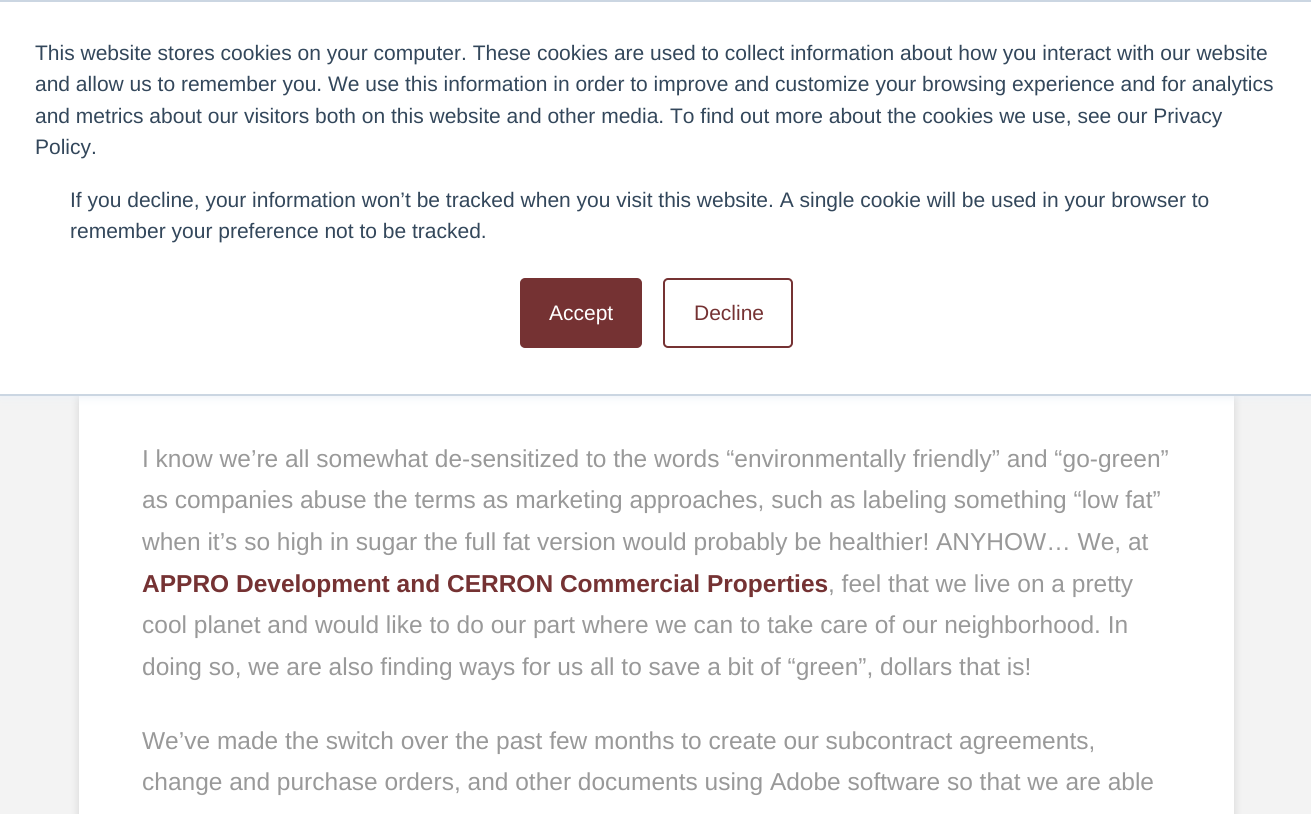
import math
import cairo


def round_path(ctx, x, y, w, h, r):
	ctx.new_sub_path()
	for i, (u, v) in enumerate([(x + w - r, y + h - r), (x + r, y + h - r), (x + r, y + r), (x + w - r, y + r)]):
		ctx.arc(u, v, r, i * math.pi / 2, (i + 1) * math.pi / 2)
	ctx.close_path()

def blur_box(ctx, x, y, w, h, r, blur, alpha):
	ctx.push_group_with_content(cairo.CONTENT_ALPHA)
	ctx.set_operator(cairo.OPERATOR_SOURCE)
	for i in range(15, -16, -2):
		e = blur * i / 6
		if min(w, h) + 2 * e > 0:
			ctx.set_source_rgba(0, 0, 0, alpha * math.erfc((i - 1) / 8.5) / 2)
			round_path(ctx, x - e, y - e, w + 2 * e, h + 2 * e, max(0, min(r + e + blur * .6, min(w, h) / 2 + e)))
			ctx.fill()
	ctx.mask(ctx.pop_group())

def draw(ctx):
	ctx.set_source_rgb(0.953, 0.953, 0.953)
	ctx.paint()
	ctx.set_source_rgb(0, 0, 0)
	blur_box(ctx, 79, 284, 1155, 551, 7, 4.5, 0.13)
	ctx.set_source_rgb(1, 1, 1)
	ctx.rectangle(79, 396, 1155, 418)
	ctx.fill()
	ctx.set_source_rgb(0.918, 0.941, 0.965)
	blur_box(ctx, 0, 2, 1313, 395, 0, 4.5, 1)
	ctx.set_source_rgb(1, 1, 1)
	ctx.rectangle(0, 2, 1311, 392)
	ctx.fill()
	ctx.set_source_rgb(0.796, 0.839, 0.886)
	ctx.rectangle(0, 0, 1311, 2)
	ctx.rectangle(0, 394, 1311, 2)
	ctx.fill()
	ctx.select_font_face('Liberation Sans')
	ctx.set_font_size(21)
	ctx.set_source_rgb(0.2, 0.278, 0.357)
	for x, y, s in [
		(35, 60, 'This website stores cookies on your computer. These cookies are used to collect information about how you interact with our website'),
		(35, 91, 'and allow us to remember you. We use this information in order to improve and customize your browsing experience and for analytics'),
		(35, 123, 'and metrics about our visitors both on this website and other media. To find out more about the cookies we use, see our Privacy'),
		(35, 154, 'Policy.'),
		(70, 207, 'If you decline, your information won’t be tracked when you visit this website. A single cookie will be used in your browser to'),
		(70, 238, 'remember your preference not to be tracked.'),
	]:
		ctx.move_to(x, y)
		ctx.show_text(s)
	ctx.set_source_rgb(0.459, 0.196, 0.2)
	round_path(ctx, 521, 279, 120, 68, 4)
	ctx.fill_preserve()
	ctx.stroke()
	ctx.set_source_rgb(1, 1, 1)
	ctx.move_to(549, 320)
	ctx.show_text('Accept')
	round_path(ctx, 664, 279, 128, 68, 4)
	ctx.set_source_rgb(0.459, 0.196, 0.2)
	ctx.stroke()
	ctx.move_to(694, 320)
	ctx.show_text('Decline')
	ctx.set_font_size(24.5)
	ctx.set_source_rgb(0.6, 0.6, 0.6)
	for x, y, s in [
		(142, 467, 'I know we’re all somewhat de-sensitized to the words “environmentally friendly” and “go-green”'),
		(142, 508, 'as companies abuse the terms as marketing approaches, such as labeling something “low fat”'),
		(142, 550, 'when it’s so high in sugar the full fat version would probably be healthier! ANYHOW… We, at'),
	]:
		ctx.move_to(x, y)
		ctx.show_text(s)
	ctx.select_font_face('Liberation Sans', cairo.FONT_SLANT_NORMAL, cairo.FONT_WEIGHT_BOLD)
	ctx.set_source_rgb(0.459, 0.196, 0.2)
	ctx.move_to(142, 592)
	ctx.show_text('APPRO Development and CERRON Commercial Properties')
	ctx.select_font_face('Liberation Sans')
	ctx.set_source_rgb(0.6, 0.6, 0.6)
	for x, y, s in [
		(828, 592, ', feel that we live on a pretty'),
		(142, 633, 'cool planet and would like to do our part where we can to take care of our neighborhood. In'),
		(142, 675, 'doing so, we are also finding ways for us all to save a bit of “green”, dollars that is!'),
		(142, 749, 'We’ve made the switch over the past few months to create our subcontract agreements,'),
		(142, 790, 'change and purchase orders, and other documents using Adobe software so that we are able'),
	]:
		ctx.move_to(x, y)
		ctx.show_text(s)


surface = cairo.ImageSurface(cairo.FORMAT_RGB24, 1311, 814)
ctx = cairo.Context(surface)
options = cairo.FontOptions()
options.set_hint_metrics(cairo.HINT_METRICS_OFF)
options.set_hint_style(cairo.HINT_STYLE_NONE)
ctx.set_font_options(options)
ctx.set_miter_limit(4)
draw(ctx)
surface.write_to_png('image.png')
